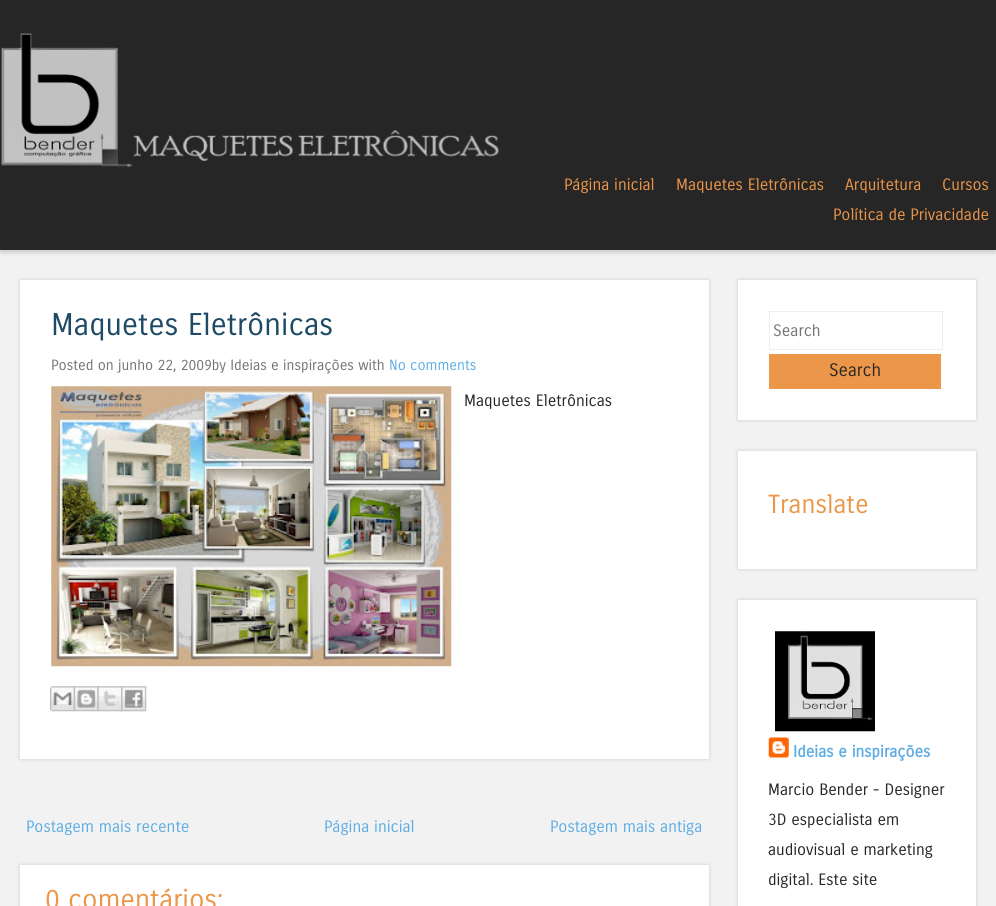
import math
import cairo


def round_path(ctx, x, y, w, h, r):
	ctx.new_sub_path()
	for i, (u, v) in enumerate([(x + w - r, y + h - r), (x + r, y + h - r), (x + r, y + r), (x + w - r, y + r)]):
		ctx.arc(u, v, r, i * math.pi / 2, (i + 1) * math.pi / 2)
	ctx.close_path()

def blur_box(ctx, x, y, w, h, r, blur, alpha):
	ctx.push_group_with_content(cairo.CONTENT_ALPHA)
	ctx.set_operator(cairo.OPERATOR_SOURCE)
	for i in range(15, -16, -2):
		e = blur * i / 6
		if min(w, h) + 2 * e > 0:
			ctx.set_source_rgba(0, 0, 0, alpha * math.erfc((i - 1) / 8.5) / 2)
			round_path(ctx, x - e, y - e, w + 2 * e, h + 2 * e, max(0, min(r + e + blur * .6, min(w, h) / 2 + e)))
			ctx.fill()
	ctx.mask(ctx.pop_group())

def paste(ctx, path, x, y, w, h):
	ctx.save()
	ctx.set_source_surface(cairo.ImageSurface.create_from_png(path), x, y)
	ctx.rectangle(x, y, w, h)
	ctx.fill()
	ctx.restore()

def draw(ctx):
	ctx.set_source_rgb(0.949, 0.949, 0.949)
	ctx.paint()
	ctx.set_source_rgb(0.392, 0.392, 0.392)
	blur_box(ctx, 0, 3, 996, 250, 0, 2, 0.25)
	ctx.set_source_rgb(0.149, 0.149, 0.149)
	ctx.rectangle(0, 0, 996, 250)
	ctx.fill()
	paste(ctx, 'media/1.png', 1, 33, 498, 135)
	ctx.select_font_face('Carrois Gothic')
	ctx.set_font_size(16)
	ctx.set_source_rgb(0.918, 0.588, 0.286)
	for x, y, s in [
		(564, 190, 'Página inicial'),
		(676, 190, 'Maquetes Eletrônicas'),
		(845, 190, 'Arquitetura'),
		(942, 190, 'Cursos'),
		(833, 220, 'Política de Privacidade'),
	]:
		ctx.move_to(x, y)
		ctx.show_text(s)
	ctx.set_source_rgb(0.392, 0.392, 0.392)
	blur_box(ctx, 20, 280, 689, 479, 0, 2, 0.25)
	ctx.set_source_rgb(1, 1, 1)
	ctx.rectangle(20, 280, 689, 479)
	ctx.fill()
	ctx.set_font_size(30.5)
	ctx.set_source_rgb(0.118, 0.29, 0.4)
	ctx.move_to(51, 335)
	ctx.show_text('Maquetes Eletrônicas')
	ctx.set_font_size(14.4)
	ctx.set_source_rgb(0.451, 0.451, 0.451)
	ctx.move_to(51, 370)
	ctx.show_text('Posted on junho 22, 2009by Ideias e inspirações with')
	ctx.set_source_rgb(0.365, 0.678, 0.886)
	ctx.move_to(389, 370)
	ctx.show_text('No comments')
	paste(ctx, 'media/2.png', 51, 386, 401, 281)
	ctx.set_font_size(16)
	ctx.set_source_rgb(0.149, 0.149, 0.149)
	ctx.move_to(464, 406)
	ctx.show_text('Maquetes Eletrônicas')
	paste(ctx, 'media/3.png', 50, 686, 25, 26)
	paste(ctx, 'media/4.png', 73, 686, 26, 26)
	paste(ctx, 'media/5.png', 97, 686, 26, 26)
	paste(ctx, 'media/6.png', 121, 686, 26, 26)
	ctx.set_source_rgb(0.365, 0.678, 0.886)
	for x, y, s in [
		(26, 832, 'Postagem mais recente'),
		(324, 832, 'Página inicial'),
		(550, 832, 'Postagem mais antiga'),
	]:
		ctx.move_to(x, y)
		ctx.show_text(s)
	ctx.set_source_rgb(0.392, 0.392, 0.392)
	blur_box(ctx, 20, 865, 689, 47, 0, 2, 0.25)
	ctx.set_source_rgb(1, 1, 1)
	ctx.rectangle(20, 865, 689, 41)
	ctx.fill()
	ctx.set_font_size(27.5)
	ctx.set_source_rgb(0.918, 0.588, 0.286)
	ctx.move_to(45, 909)
	ctx.show_text('0 comentários:')
	ctx.set_source_rgb(0.392, 0.392, 0.392)
	blur_box(ctx, 738, 280, 238, 140, 0, 2, 0.25)
	ctx.set_source_rgb(1, 1, 1)
	ctx.rectangle(738, 280, 238, 140)
	ctx.fill()
	ctx.rectangle(769.5, 311.5, 173, 38)
	ctx.set_source_rgb(0.933, 0.933, 0.933)
	ctx.set_line_width(1)
	ctx.stroke()
	ctx.set_font_size(16)
	ctx.set_source_rgb(0.451, 0.451, 0.451)
	ctx.move_to(773, 336)
	ctx.show_text('Search')
	ctx.set_source_rgb(0.918, 0.588, 0.286)
	ctx.rectangle(769, 354, 172, 35)
	ctx.fill()
	ctx.set_font_size(17.5)
	ctx.set_source_rgb(0.149, 0.149, 0.149)
	ctx.move_to(829, 376)
	ctx.show_text('Search')
	ctx.set_source_rgb(0.392, 0.392, 0.392)
	blur_box(ctx, 738, 451, 238, 118, 0, 2, 0.25)
	ctx.set_source_rgb(1, 1, 1)
	ctx.rectangle(738, 451, 238, 118)
	ctx.fill()
	ctx.set_font_size(25.5)
	ctx.set_source_rgb(0.918, 0.588, 0.286)
	ctx.move_to(768, 513)
	ctx.show_text('Translate')
	ctx.set_source_rgb(0.392, 0.392, 0.392)
	blur_box(ctx, 738, 600, 238, 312, 0, 2, 0.25)
	ctx.set_source_rgb(1, 1, 1)
	ctx.rectangle(738, 600, 238, 306)
	ctx.fill()
	paste(ctx, 'media/7.png', 775, 631, 100, 101)
	paste(ctx, 'media/8.png', 768, 737, 21, 21)
	ctx.select_font_face('Carrois Gothic', cairo.FONT_SLANT_NORMAL, cairo.FONT_WEIGHT_BOLD)
	ctx.set_font_size(16)
	ctx.set_source_rgb(0.365, 0.678, 0.886)
	ctx.move_to(793, 757)
	ctx.show_text('Ideias e inspirações')
	ctx.select_font_face('Carrois Gothic')
	ctx.set_source_rgb(0.149, 0.149, 0.149)
	for x, y, s in [
		(768, 795, 'Marcio Bender - Designer'),
		(768, 825, '3D especialista em'),
		(768, 855, 'audiovisual e marketing'),
		(768, 885, 'digital. Este site'),
	]:
		ctx.move_to(x, y)
		ctx.show_text(s)


surface = cairo.ImageSurface(cairo.FORMAT_RGB24, 996, 906)
ctx = cairo.Context(surface)
options = cairo.FontOptions()
options.set_hint_metrics(cairo.HINT_METRICS_OFF)
options.set_hint_style(cairo.HINT_STYLE_NONE)
ctx.set_font_options(options)
ctx.set_miter_limit(4)
draw(ctx)
surface.write_to_png('image.png')
